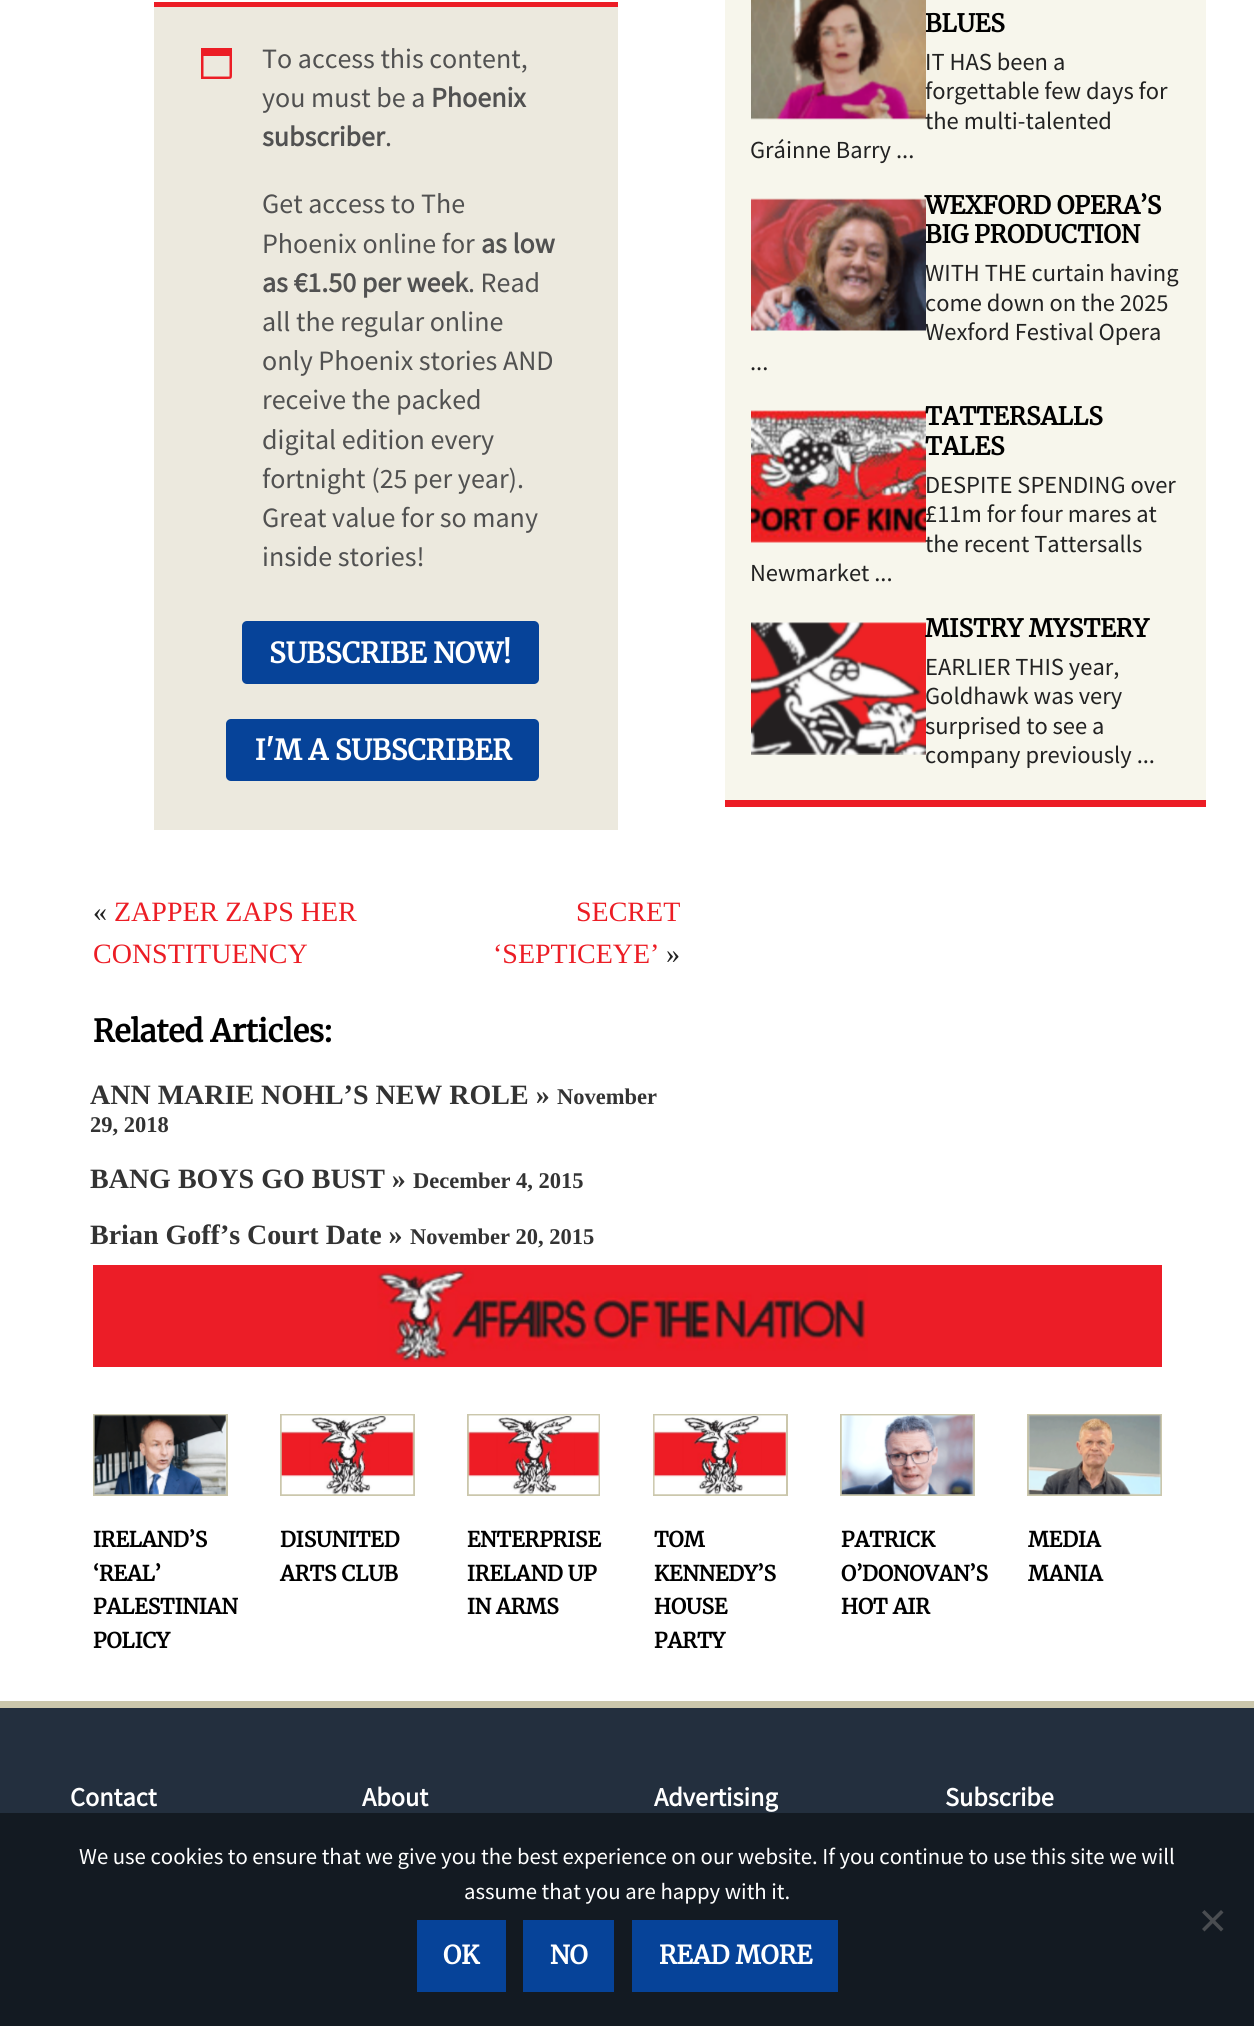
import math
import cairo


def round_path(ctx, x, y, w, h, r):
	ctx.new_sub_path()
	for i, (u, v) in enumerate([(x + w - r, y + h - r), (x + r, y + h - r), (x + r, y + r), (x + w - r, y + r)]):
		ctx.arc(u, v, r, i * math.pi / 2, (i + 1) * math.pi / 2)
	ctx.close_path()

def paste(ctx, path, x, y, w, h):
	ctx.save()
	ctx.set_source_surface(cairo.ImageSurface.create_from_png(path), x, y)
	ctx.rectangle(x, y, w, h)
	ctx.fill()
	ctx.restore()

def draw(ctx):
	ctx.set_source_rgb(0.137, 0.184, 0.243)
	ctx.paint()
	ctx.set_source_rgb(1, 1, 1)
	ctx.rectangle(0, 0, 1254, 1701)
	ctx.fill()
	ctx.set_source_rgb(0.922, 0.914, 0.871)
	ctx.rectangle(154, 7, 464, 823)
	ctx.fill()
	ctx.set_source_rgb(0.925, 0.114, 0.145)
	ctx.rectangle(154, 2, 464, 5)
	ctx.fill()
	ctx.new_path()
	ctx.move_to(229.5, 56)
	ctx.line_to(203.5, 56)
	ctx.line_to(203.5, 76.5)
	ctx.line_to(229.5, 76.5)
	ctx.close_path()
	ctx.move_to(232, 48)
	ctx.line_to(232, 71.5)
	ctx.curve_to(232, 79.5, 232.5, 79, 225, 79)
	ctx.line_to(201, 79)
	ctx.line_to(201, 48)
	ctx.close_path()
	ctx.fill()
	ctx.select_font_face('Source Sans Pro')
	ctx.set_font_size(28)
	ctx.set_source_rgb(0.318, 0.318, 0.318)
	ctx.move_to(262, 68)
	ctx.show_text('To access this content,')
	ctx.move_to(262, 107)
	ctx.show_text('you must be a')
	ctx.select_font_face('Source Sans Pro', cairo.FONT_SLANT_NORMAL, cairo.FONT_WEIGHT_BOLD)
	ctx.move_to(431, 107)
	ctx.show_text('Phoenix')
	ctx.move_to(262, 146)
	ctx.show_text('subscriber')
	ctx.select_font_face('Source Sans Pro')
	for x, y, s in [
		(385, 146, '.'),
		(262, 213, 'Get access to The'),
		(262, 253, 'Phoenix online for'),
	]:
		ctx.move_to(x, y)
		ctx.show_text(s)
	ctx.select_font_face('Source Sans Pro', cairo.FONT_SLANT_NORMAL, cairo.FONT_WEIGHT_BOLD)
	ctx.move_to(481, 253)
	ctx.show_text('as low')
	ctx.move_to(262, 292)
	ctx.show_text('as €1.50 per week')
	ctx.select_font_face('Source Sans Pro')
	for x, y, s in [
		(468, 292, '. Read'),
		(262, 331, 'all the regular online'),
		(262, 370, 'only Phoenix stories AND'),
		(262, 409, 'receive the packed'),
		(262, 449, 'digital edition every'),
		(262, 488, 'fortnight (25 per year).'),
		(262, 527, 'Great value for so many'),
		(262, 566, 'inside stories!'),
	]:
		ctx.move_to(x, y)
		ctx.show_text(s)
	ctx.set_source_rgb(0.027, 0.263, 0.6)
	round_path(ctx, 242, 621, 297, 63, 5)
	ctx.fill()
	ctx.select_font_face('Merriweather', cairo.FONT_SLANT_NORMAL, cairo.FONT_WEIGHT_BOLD)
	ctx.set_source_rgb(1, 1, 1)
	ctx.move_to(269, 663)
	ctx.show_text('SUBSCRIBE NOW!')
	ctx.set_source_rgb(0.027, 0.263, 0.6)
	round_path(ctx, 226, 719, 313, 62, 5)
	ctx.fill()
	ctx.set_source_rgb(1, 1, 1)
	ctx.move_to(255, 760)
	ctx.show_text('I\'M A SUBSCRIBER')
	ctx.select_font_face('Liberation Serif')
	ctx.set_source_rgb(0.133, 0.133, 0.133)
	ctx.move_to(93, 921)
	ctx.show_text('«')
	ctx.set_source_rgb(0.925, 0.114, 0.145)
	for x, y, s in [
		(114, 921, 'ZAPPER ZAPS HER'),
		(93, 963, 'CONSTITUENCY'),
		(576, 921, 'SECRET'),
		(493, 963, '‘SEPTICEYE’'),
	]:
		ctx.move_to(x, y)
		ctx.show_text(s)
	ctx.set_source_rgb(0.133, 0.133, 0.133)
	ctx.move_to(666, 963)
	ctx.show_text('»')
	ctx.select_font_face('Merriweather', cairo.FONT_SLANT_NORMAL, cairo.FONT_WEIGHT_BOLD)
	ctx.set_font_size(30.75)
	ctx.set_source_rgb(0, 0, 0)
	ctx.move_to(93, 1042)
	ctx.show_text('Related Articles:')
	ctx.select_font_face('Liberation Serif', cairo.FONT_SLANT_NORMAL, cairo.FONT_WEIGHT_BOLD)
	ctx.set_font_size(28)
	ctx.set_source_rgb(0.2, 0.2, 0.2)
	ctx.move_to(90, 1104)
	ctx.show_text('ANN MARIE NOHL’S NEW ROLE »')
	ctx.set_font_size(22.5)
	ctx.move_to(557, 1104)
	ctx.show_text('November')
	ctx.move_to(90, 1132)
	ctx.show_text('29, 2018')
	ctx.set_font_size(28)
	ctx.move_to(90, 1188)
	ctx.show_text('BANG BOYS GO BUST »')
	ctx.set_font_size(22.5)
	ctx.move_to(413, 1188)
	ctx.show_text('December 4, 2015')
	ctx.set_font_size(28)
	ctx.move_to(90, 1244)
	ctx.show_text('Brian Goff’s Court Date »')
	ctx.set_font_size(22.5)
	ctx.move_to(410, 1244)
	ctx.show_text('November 20, 2015')
	ctx.set_source_rgb(0.965, 0.961, 0.922)
	ctx.rectangle(725, 0, 481, 800)
	ctx.fill()
	ctx.set_source_rgb(0.925, 0.114, 0.145)
	ctx.rectangle(725, 800, 481, 7)
	ctx.fill()
	paste(ctx, 'media/1.png', 751, 0, 175, 120)
	ctx.select_font_face('Merriweather', cairo.FONT_SLANT_NORMAL, cairo.FONT_WEIGHT_BOLD)
	ctx.set_font_size(24.5)
	ctx.set_source_rgb(0, 0, 0)
	ctx.move_to(925, 32)
	ctx.show_text('BLUES')
	ctx.select_font_face('Source Sans Pro')
	ctx.set_source_rgb(0.133, 0.133, 0.133)
	for x, y, s in [
		(925, 70, 'IT HAS been a'),
		(925, 99, 'forgettable few days for'),
		(925, 129, 'the multi-talented'),
		(750, 158, 'Gráinne Barry ...'),
	]:
		ctx.move_to(x, y)
		ctx.show_text(s)
	paste(ctx, 'media/2.png', 751, 198, 175, 133)
	ctx.select_font_face('Merriweather', cairo.FONT_SLANT_NORMAL, cairo.FONT_WEIGHT_BOLD)
	ctx.set_source_rgb(0, 0, 0)
	ctx.move_to(925, 214)
	ctx.show_text('WEXFORD OPERA’S')
	ctx.move_to(925, 243)
	ctx.show_text('BIG PRODUCTION')
	ctx.select_font_face('Source Sans Pro')
	ctx.set_source_rgb(0.133, 0.133, 0.133)
	for x, y, s in [
		(925, 281, 'WITH THE curtain having'),
		(925, 311, 'come down on the 2025'),
		(925, 340, 'Wexford Festival Opera'),
		(750, 370, '...'),
	]:
		ctx.move_to(x, y)
		ctx.show_text(s)
	paste(ctx, 'media/3.png', 751, 410, 175, 133)
	ctx.select_font_face('Merriweather', cairo.FONT_SLANT_NORMAL, cairo.FONT_WEIGHT_BOLD)
	ctx.set_source_rgb(0, 0, 0)
	ctx.move_to(925, 425)
	ctx.show_text('TATTERSALLS')
	ctx.move_to(925, 455)
	ctx.show_text('TALES')
	ctx.select_font_face('Source Sans Pro')
	ctx.set_source_rgb(0.133, 0.133, 0.133)
	for x, y, s in [
		(925, 493, 'DESPITE SPENDING over'),
		(925, 522, '£11m for four mares at'),
		(925, 552, 'the recent Tattersalls'),
		(750, 581, 'Newmarket ...'),
	]:
		ctx.move_to(x, y)
		ctx.show_text(s)
	paste(ctx, 'media/4.png', 751, 622, 175, 133)
	ctx.select_font_face('Merriweather', cairo.FONT_SLANT_NORMAL, cairo.FONT_WEIGHT_BOLD)
	ctx.set_source_rgb(0, 0, 0)
	ctx.move_to(925, 637)
	ctx.show_text('MISTRY MYSTERY')
	ctx.select_font_face('Source Sans Pro')
	ctx.set_source_rgb(0.133, 0.133, 0.133)
	for x, y, s in [
		(925, 675, 'EARLIER THIS year,'),
		(925, 704, 'Goldhawk was very'),
		(925, 734, 'surprised to see a'),
		(925, 763, 'company previously ...'),
	]:
		ctx.move_to(x, y)
		ctx.show_text(s)
	ctx.set_source_rgb(0.922, 0.114, 0.153)
	ctx.rectangle(93, 1265, 1069, 102)
	ctx.fill()
	paste(ctx, 'media/5.png', 377, 1268, 491, 94)
	ctx.rectangle(94, 1415, 133, 80)
	ctx.set_source_rgb(0.796, 0.78, 0.675)
	ctx.stroke()
	paste(ctx, 'media/6.png', 93, 1415, 133, 80)
	ctx.select_font_face('Merriweather', cairo.FONT_SLANT_NORMAL, cairo.FONT_WEIGHT_BOLD)
	ctx.set_font_size(21)
	ctx.set_source_rgb(0, 0, 0)
	for x, y, s in [
		(93, 1547, 'IRELAND’S'),
		(93, 1581, '‘REAL’'),
		(93, 1614, 'PALESTINIAN'),
		(93, 1648, 'POLICY'),
	]:
		ctx.move_to(x, y)
		ctx.show_text(s)
	ctx.rectangle(281, 1415, 133, 80)
	ctx.set_source_rgb(0.796, 0.78, 0.675)
	ctx.stroke()
	paste(ctx, 'media/7.png', 281, 1415, 133, 80)
	ctx.set_source_rgb(0, 0, 0)
	ctx.move_to(280, 1547)
	ctx.show_text('DISUNITED')
	ctx.move_to(280, 1581)
	ctx.show_text('ARTS CLUB')
	ctx.rectangle(468, 1415, 131, 80)
	ctx.set_source_rgb(0.796, 0.78, 0.675)
	ctx.stroke()
	paste(ctx, 'media/8.png', 468, 1415, 131, 80)
	ctx.set_source_rgb(0, 0, 0)
	for x, y, s in [
		(467, 1547, 'ENTERPRISE'),
		(467, 1581, 'IRELAND UP'),
		(467, 1614, 'IN ARMS'),
	]:
		ctx.move_to(x, y)
		ctx.show_text(s)
	ctx.rectangle(654, 1415, 133, 80)
	ctx.set_source_rgb(0.796, 0.78, 0.675)
	ctx.stroke()
	paste(ctx, 'media/9.png', 653, 1415, 133, 80)
	ctx.set_source_rgb(0, 0, 0)
	for x, y, s in [
		(654, 1547, 'TOM'),
		(654, 1581, 'KENNEDY’S'),
		(654, 1614, 'HOUSE'),
		(654, 1648, 'PARTY'),
	]:
		ctx.move_to(x, y)
		ctx.show_text(s)
	ctx.rectangle(841, 1415, 133, 80)
	ctx.set_source_rgb(0.796, 0.78, 0.675)
	ctx.stroke()
	paste(ctx, 'media/10.png', 841, 1415, 133, 80)
	ctx.set_source_rgb(0, 0, 0)
	for x, y, s in [
		(841, 1547, 'PATRICK'),
		(841, 1581, 'O’DONOVAN’S'),
		(841, 1614, 'HOT AIR'),
	]:
		ctx.move_to(x, y)
		ctx.show_text(s)
	ctx.rectangle(1028, 1415, 133, 80)
	ctx.set_source_rgb(0.796, 0.78, 0.675)
	ctx.stroke()
	paste(ctx, 'media/11.png', 1028, 1415, 133, 80)
	ctx.set_source_rgb(0, 0, 0)
	ctx.move_to(1028, 1547)
	ctx.show_text('MEDIA')
	ctx.move_to(1028, 1581)
	ctx.show_text('MANIA')
	ctx.set_source_rgb(0.796, 0.78, 0.675)
	ctx.rectangle(0, 1701, 1254, 7)
	ctx.fill()
	ctx.select_font_face('Source Sans Pro', cairo.FONT_SLANT_NORMAL, cairo.FONT_WEIGHT_BOLD)
	ctx.set_font_size(26.25)
	ctx.set_source_rgb(1, 1, 1)
	for x, y, s in [
		(70, 1806, 'Contact'),
		(362, 1806, 'About'),
		(654, 1806, 'Advertising'),
		(945, 1806, 'Subscribe'),
	]:
		ctx.move_to(x, y)
		ctx.show_text(s)
	ctx.set_source_rgb(0.075, 0.102, 0.133)
	ctx.rectangle(0, 1813, 1254, 213)
	ctx.fill()
	ctx.select_font_face('Source Sans Pro')
	ctx.set_font_size(22.75)
	ctx.set_source_rgb(1, 1, 1)
	ctx.move_to(79, 1864)
	ctx.show_text('We use cookies to ensure that we give you the best experience on our website. If you continue to use this site we will')
	ctx.move_to(464, 1899)
	ctx.show_text('assume that you are happy with it.')
	ctx.set_source_rgb(0.29, 0.302, 0.318)
	ctx.new_path()
	ctx.move_to(1221, 1910)
	ctx.line_to(1223.5, 1912.5)
	ctx.line_to(1204.5, 1931.5)
	ctx.line_to(1202, 1929)
	ctx.close_path()
	ctx.fill()
	ctx.new_path()
	ctx.move_to(1202, 1912.5)
	ctx.line_to(1204.5, 1910)
	ctx.line_to(1223.5, 1929)
	ctx.line_to(1221, 1931.5)
	ctx.close_path()
	ctx.fill()
	ctx.set_source_rgb(0.027, 0.263, 0.6)
	ctx.rectangle(417, 1920, 89, 72)
	ctx.fill()
	ctx.select_font_face('Merriweather', cairo.FONT_SLANT_NORMAL, cairo.FONT_WEIGHT_BOLD)
	ctx.set_font_size(25.25)
	ctx.set_source_rgb(1, 1, 1)
	ctx.move_to(443, 1964)
	ctx.show_text('OK')
	ctx.set_source_rgb(0.027, 0.263, 0.6)
	ctx.rectangle(523, 1920, 91, 72)
	ctx.fill()
	ctx.set_source_rgb(1, 1, 1)
	ctx.move_to(550, 1964)
	ctx.show_text('NO')
	ctx.set_source_rgb(0.027, 0.263, 0.6)
	ctx.rectangle(632, 1920, 206, 72)
	ctx.fill()
	ctx.set_source_rgb(1, 1, 1)
	ctx.move_to(659, 1964)
	ctx.show_text('READ MORE')


surface = cairo.ImageSurface(cairo.FORMAT_RGB24, 1254, 2026)
ctx = cairo.Context(surface)
options = cairo.FontOptions()
options.set_hint_metrics(cairo.HINT_METRICS_OFF)
options.set_hint_style(cairo.HINT_STYLE_NONE)
ctx.set_font_options(options)
ctx.set_miter_limit(4)
draw(ctx)
surface.write_to_png('image.png')
